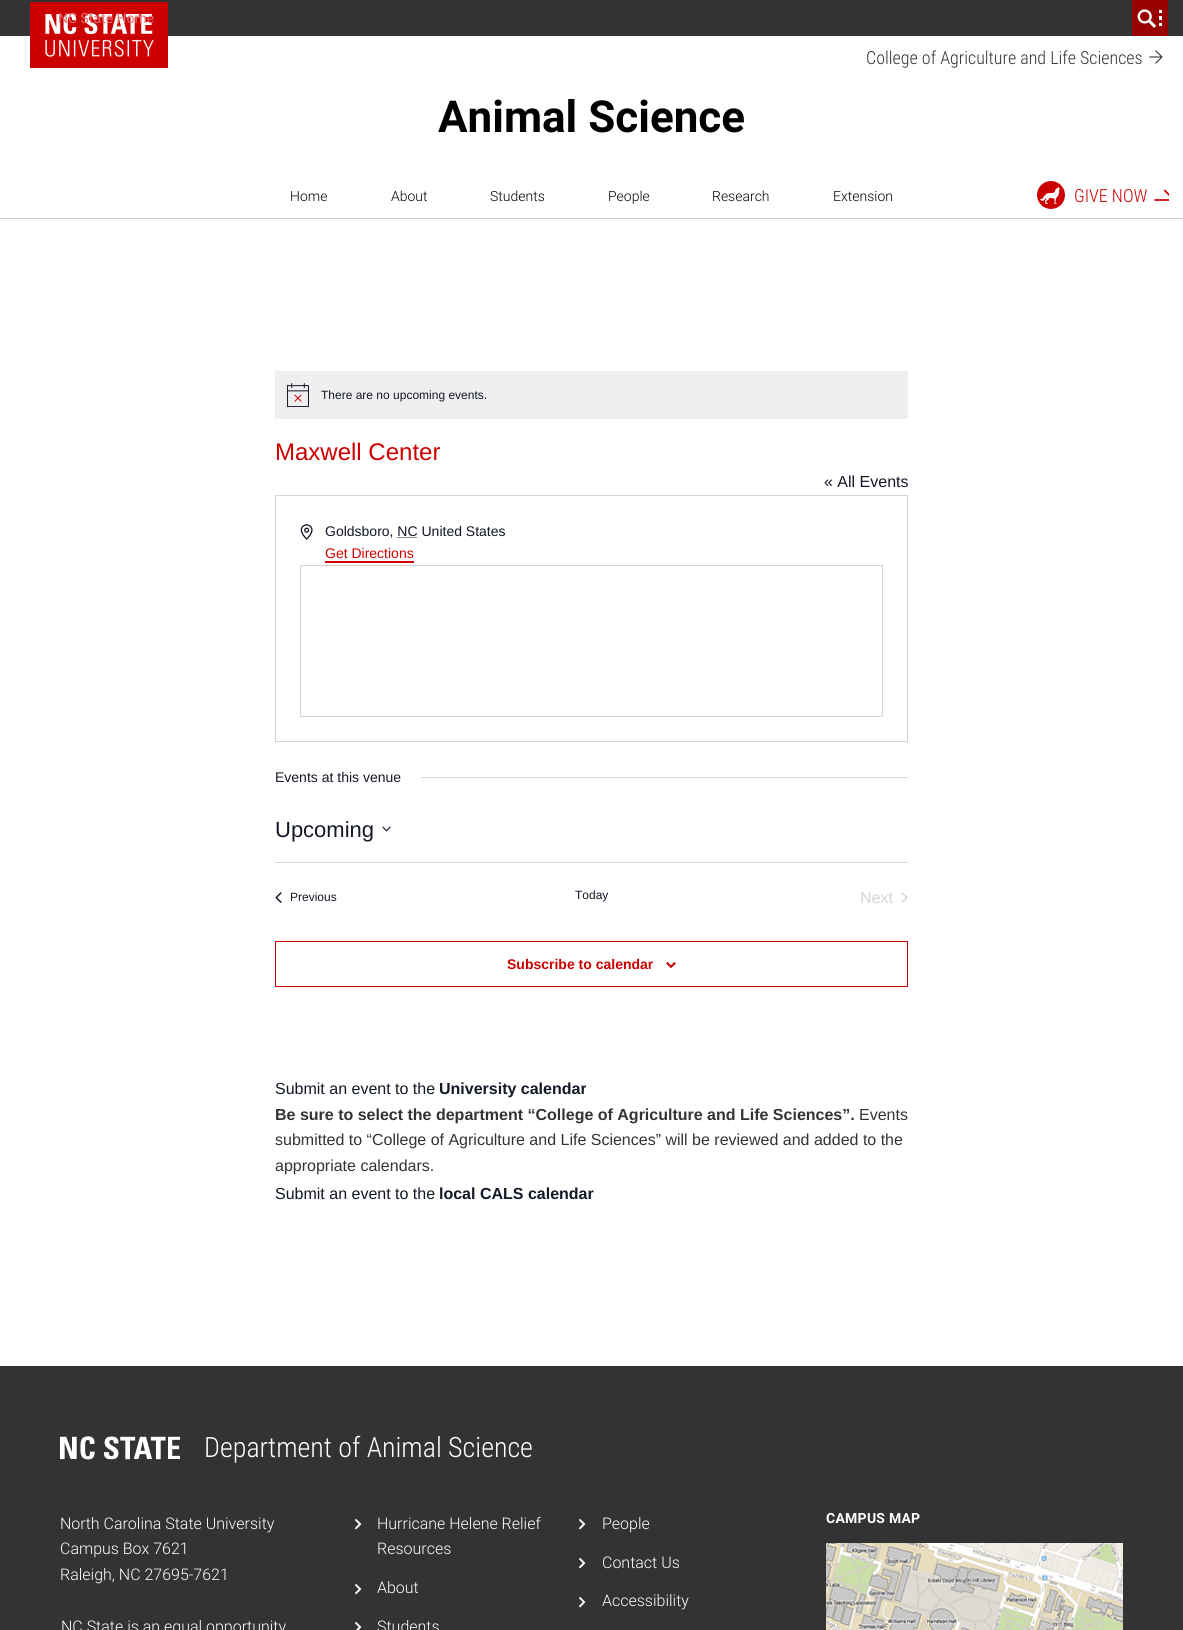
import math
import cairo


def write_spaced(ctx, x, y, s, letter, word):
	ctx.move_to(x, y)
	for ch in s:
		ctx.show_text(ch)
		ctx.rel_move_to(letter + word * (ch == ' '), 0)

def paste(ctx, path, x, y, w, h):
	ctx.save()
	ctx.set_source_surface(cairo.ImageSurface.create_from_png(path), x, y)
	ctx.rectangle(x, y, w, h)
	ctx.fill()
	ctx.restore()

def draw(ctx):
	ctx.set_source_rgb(1, 1, 1)
	ctx.paint()
	ctx.set_source_rgb(0.2, 0.2, 0.2)
	ctx.rectangle(0, 0, 1183, 36)
	ctx.fill()
	paste(ctx, 'media/1.png', 30, 2, 138, 66)
	ctx.select_font_face('Roboto')
	ctx.set_font_size(14)
	ctx.set_source_rgb(0.886, 0.435, 0.435)
	ctx.move_to(58, 23)
	ctx.show_text('NC State Home')
	ctx.set_source_rgb(0.6, 0, 0)
	ctx.rectangle(1132, 0, 36, 36)
	ctx.fill()
	paste(ctx, 'media/2.png', 1137, 9, 25, 19)
	ctx.select_font_face('Roboto Condensed Light')
	ctx.set_font_size(18)
	ctx.set_source_rgb(0.2, 0.2, 0.2)
	ctx.move_to(866, 64)
	ctx.show_text('College of Agriculture and Life Sciences')
	paste(ctx, 'media/3.png', 1149, 50, 14, 14)
	ctx.select_font_face('Roboto', cairo.FONT_SLANT_NORMAL, cairo.FONT_WEIGHT_BOLD)
	ctx.set_font_size(44)
	ctx.set_source_rgb(0, 0, 0)
	ctx.move_to(438, 132)
	ctx.show_text('Animal Science')
	ctx.set_source_rgb(0.8, 0.8, 0.8)
	ctx.rectangle(0, 218, 1183, 1)
	ctx.fill()
	ctx.select_font_face('Roboto Light')
	ctx.set_font_size(14)
	ctx.set_source_rgb(0, 0, 0)
	for x, y, s in [
		(290, 201, 'Home'),
		(391, 201, 'About'),
		(490, 201, 'Students'),
		(608, 201, 'People'),
		(712, 201, 'Research'),
		(833, 201, 'Extension'),
	]:
		ctx.move_to(x, y)
		ctx.show_text(s)
	paste(ctx, 'media/4.png', 1037, 181, 28, 28)
	ctx.select_font_face('Roboto Condensed Light')
	ctx.set_font_size(18)
	ctx.set_source_rgb(0.8, 0, 0)
	ctx.move_to(1074, 202)
	ctx.show_text('GIVE NOW')
	paste(ctx, 'media/5.png', 1154, 189, 15, 12)
	ctx.set_source_rgb(0.937, 0.937, 0.941)
	ctx.rectangle(275, 371, 633, 48)
	ctx.fill()
	paste(ctx, 'media/6.png', 287, 383, 22, 24)
	ctx.select_font_face('Liberation Sans')
	ctx.set_font_size(12)
	ctx.set_source_rgb(0.078, 0.094, 0.153)
	ctx.move_to(321, 399)
	ctx.show_text('There are no upcoming events.')
	ctx.set_font_size(24)
	ctx.set_source_rgb(0.8, 0, 0)
	ctx.move_to(275, 460)
	ctx.show_text('Maxwell Center')
	ctx.set_font_size(16)
	ctx.set_source_rgb(0.078, 0.094, 0.153)
	ctx.move_to(824, 487)
	ctx.show_text('« All Events')
	ctx.rectangle(275.5, 495.5, 632, 246)
	ctx.set_source_rgb(0.835, 0.835, 0.835)
	ctx.set_line_width(1)
	ctx.stroke()
	paste(ctx, 'media/7.png', 300, 524, 13, 16)
	ctx.set_font_size(14)
	ctx.set_source_rgb(0.078, 0.094, 0.153)
	ctx.move_to(325, 536)
	ctx.show_text('Goldsboro, NC United States')
	ctx.new_path()
	ctx.move_to(397.5, 537.5)
	ctx.line_to(417.5, 537.5)
	ctx.set_dash([1, 1])
	ctx.stroke()
	ctx.set_source_rgb(0.8, 0, 0)
	ctx.move_to(325, 558)
	ctx.show_text('Get Directions')
	ctx.rectangle(325, 561, 89, 2)
	ctx.fill()
	ctx.rectangle(300.5, 565.5, 582, 151)
	ctx.set_source_rgb(0.835, 0.835, 0.835)
	ctx.set_dash([])
	ctx.stroke()
	ctx.set_source_rgb(0.078, 0.094, 0.153)
	ctx.move_to(275, 782)
	ctx.show_text('Events at this venue')
	ctx.set_source_rgb(0.835, 0.835, 0.835)
	ctx.rectangle(421, 777, 487, 1)
	ctx.fill()
	ctx.set_font_size(22)
	ctx.set_source_rgb(0.078, 0.094, 0.153)
	ctx.move_to(275, 837)
	ctx.show_text('Upcoming')
	paste(ctx, 'media/8.png', 382, 826, 9, 6)
	ctx.set_source_rgb(0.835, 0.835, 0.835)
	ctx.rectangle(275, 862, 633, 1)
	ctx.fill()
	paste(ctx, 'media/9.png', 275, 892, 7, 11)
	ctx.set_font_size(12)
	ctx.set_source_rgb(0.078, 0.094, 0.153)
	ctx.move_to(290, 901)
	ctx.show_text('Previous')
	ctx.move_to(575, 899)
	ctx.show_text('Today')
	ctx.set_font_size(16)
	ctx.set_source_rgb(0.835, 0.835, 0.835)
	ctx.move_to(860, 903)
	ctx.show_text('Next')
	paste(ctx, 'media/10.png', 901, 892, 7, 11)
	ctx.rectangle(275.5, 941.5, 632, 45)
	ctx.set_source_rgb(0.8, 0, 0)
	ctx.stroke()
	ctx.select_font_face('Liberation Sans', cairo.FONT_SLANT_NORMAL, cairo.FONT_WEIGHT_BOLD)
	ctx.set_font_size(14)
	ctx.move_to(507, 969)
	ctx.show_text('Subscribe to calendar')
	paste(ctx, 'media/11.png', 666, 962, 10, 6)
	ctx.select_font_face('Liberation Sans')
	ctx.set_font_size(16)
	ctx.set_source_rgb(0.078, 0.094, 0.153)
	ctx.move_to(275, 1094)
	ctx.show_text('Submit an event to the')
	ctx.select_font_face('Liberation Sans', cairo.FONT_SLANT_NORMAL, cairo.FONT_WEIGHT_BOLD)
	ctx.move_to(439, 1094)
	ctx.show_text('University calendar')
	ctx.set_source_rgb(0.2, 0.2, 0.2)
	ctx.move_to(275, 1120)
	ctx.show_text('Be sure to select the department “College of Agriculture and Life Sciences”.')
	ctx.select_font_face('Liberation Sans')
	for x, y, s in [
		(859, 1120, 'Events'),
		(275, 1145, 'submitted to “College of Agriculture and Life Sciences” will be reviewed and added to the'),
		(275, 1171, 'appropriate calendars.'),
	]:
		ctx.move_to(x, y)
		ctx.show_text(s)
	ctx.set_source_rgb(0.078, 0.094, 0.153)
	ctx.move_to(275, 1199)
	ctx.show_text('Submit an event to the')
	ctx.select_font_face('Liberation Sans', cairo.FONT_SLANT_NORMAL, cairo.FONT_WEIGHT_BOLD)
	ctx.move_to(439, 1199)
	ctx.show_text('local CALS calendar')
	ctx.set_source_rgb(0.2, 0.2, 0.2)
	ctx.rectangle(0, 1366, 1183, 264)
	ctx.fill()
	paste(ctx, 'media/12.png', 60, 1436, 120, 24)
	ctx.select_font_face('Roboto Condensed Light')
	ctx.set_font_size(28)
	ctx.set_source_rgb(1, 1, 1)
	ctx.move_to(204, 1457)
	ctx.show_text('Department of Animal Science')
	ctx.select_font_face('Roboto Light')
	ctx.set_font_size(16)
	for x, y, s in [
		(60, 1529, 'North Carolina State University'),
		(60, 1554, 'Campus Box 7621'),
		(60, 1580, 'Raleigh, NC 27695-7621'),
		(61, 1632, 'NC State is an equal opportunity'),
	]:
		ctx.move_to(x, y)
		ctx.show_text(s)
	paste(ctx, 'media/13.png', 354, 1518, 8, 12)
	ctx.move_to(377, 1529)
	ctx.show_text('Hurricane Helene Relief')
	ctx.move_to(377, 1554)
	ctx.show_text('Resources')
	paste(ctx, 'media/14.png', 579, 1518, 7, 12)
	ctx.move_to(602, 1529)
	ctx.show_text('People')
	paste(ctx, 'media/14.png', 579, 1557, 7, 12)
	ctx.move_to(602, 1568)
	ctx.show_text('Contact Us')
	paste(ctx, 'media/13.png', 354, 1583, 8, 12)
	ctx.move_to(377, 1593)
	ctx.show_text('About')
	paste(ctx, 'media/14.png', 579, 1596, 7, 12)
	ctx.move_to(602, 1606)
	ctx.show_text('Accessibility')
	paste(ctx, 'media/15.png', 354, 1621, 8, 9)
	ctx.move_to(377, 1632)
	ctx.show_text('Students')
	ctx.select_font_face('Roboto', cairo.FONT_SLANT_NORMAL, cairo.FONT_WEIGHT_BOLD)
	ctx.set_font_size(14)
	write_spaced(ctx, 826, 1523, 'CAMPUS MAP', 0.25, 0)
	paste(ctx, 'media/16.png', 826, 1543, 297, 87)


surface = cairo.ImageSurface(cairo.FORMAT_RGB24, 1183, 1630)
ctx = cairo.Context(surface)
options = cairo.FontOptions()
options.set_hint_metrics(cairo.HINT_METRICS_OFF)
options.set_hint_style(cairo.HINT_STYLE_NONE)
ctx.set_font_options(options)
ctx.set_miter_limit(4)
draw(ctx)
surface.write_to_png('image.png')
